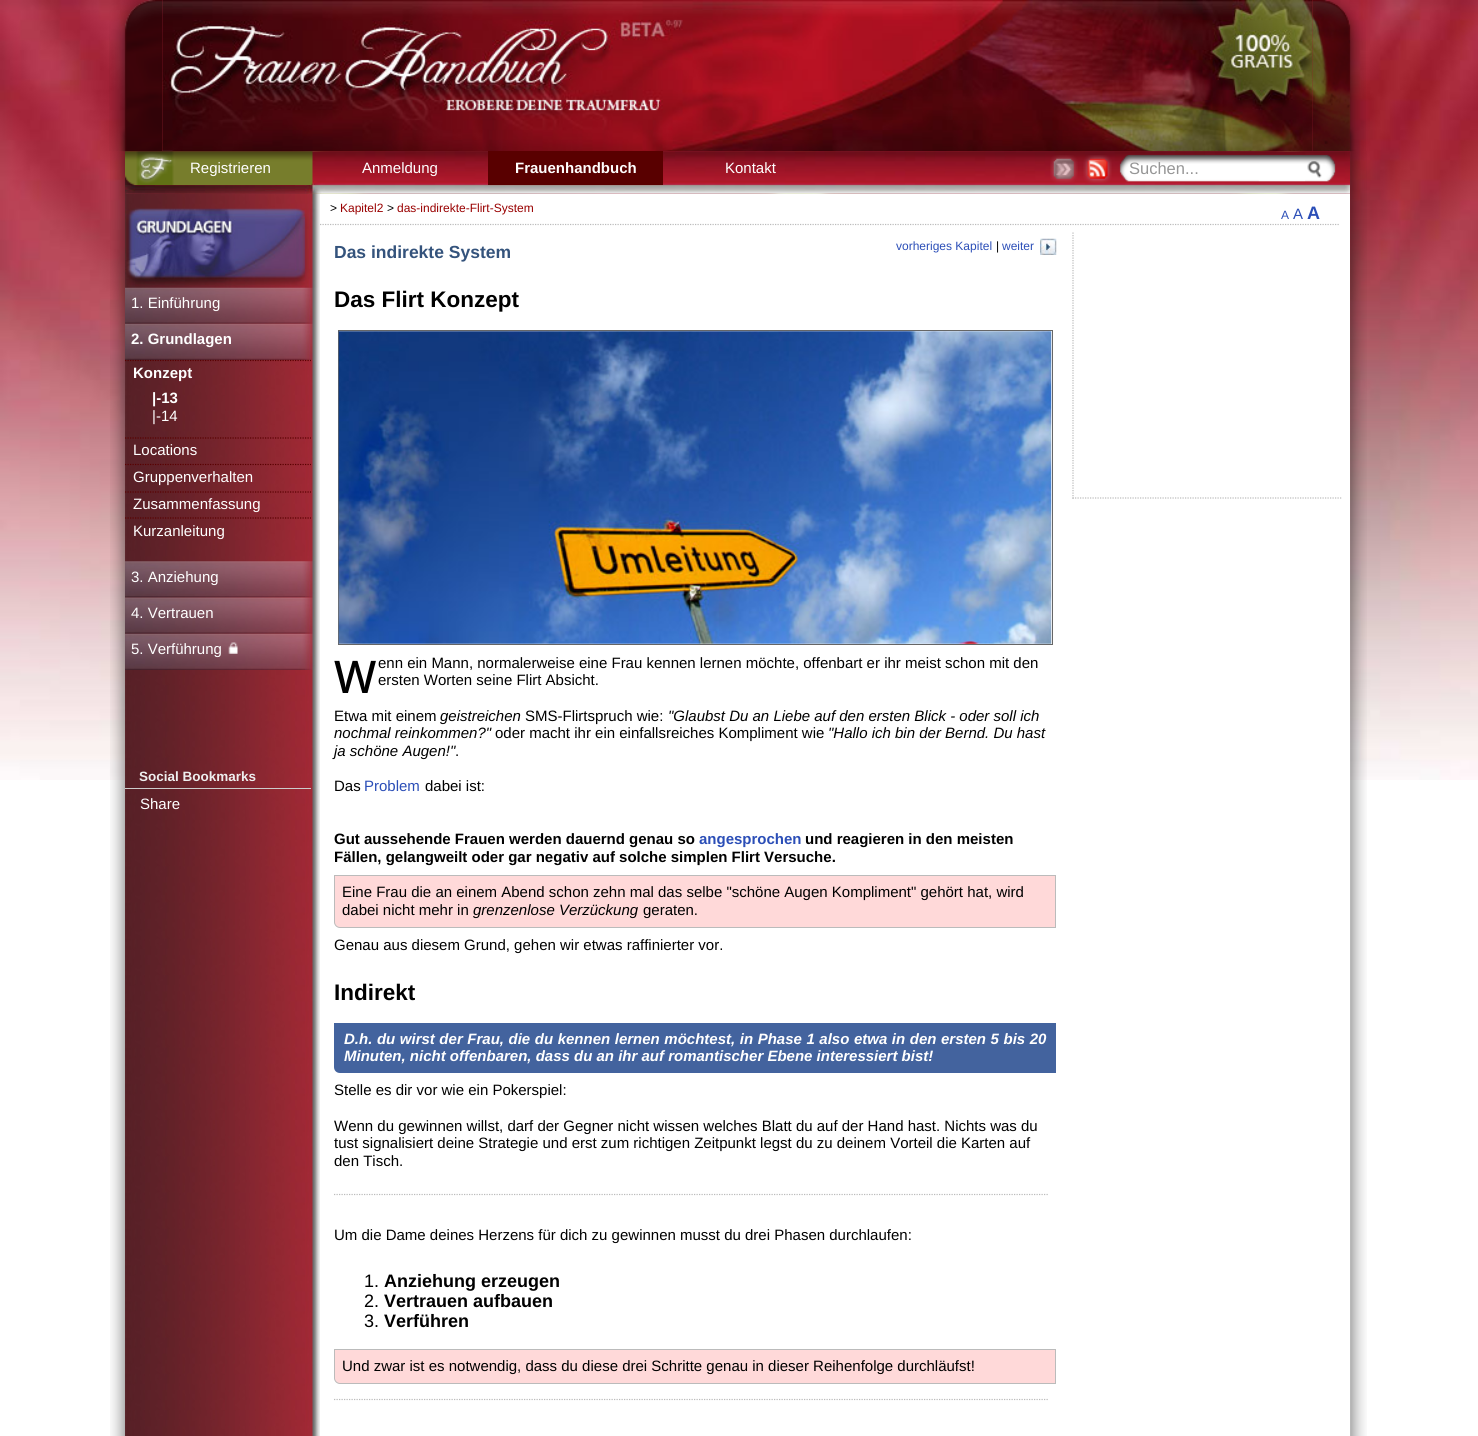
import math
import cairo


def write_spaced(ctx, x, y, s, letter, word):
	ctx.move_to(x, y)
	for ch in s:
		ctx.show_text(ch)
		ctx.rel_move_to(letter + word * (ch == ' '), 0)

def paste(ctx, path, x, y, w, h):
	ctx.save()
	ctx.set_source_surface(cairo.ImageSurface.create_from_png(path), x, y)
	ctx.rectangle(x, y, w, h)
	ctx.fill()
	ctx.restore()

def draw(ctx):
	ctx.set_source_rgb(1, 1, 1)
	ctx.paint()
	paste(ctx, 'media/1.png', 0, 0, 1478, 780)
	paste(ctx, 'media/5.png', 110, 151, 1257, 1285)
	paste(ctx, 'media/2.png', 109, 0, 54, 152)
	paste(ctx, 'media/3.png', 162, 0, 1151, 152)
	paste(ctx, 'media/4.png', 1312, 0, 54, 152)
	paste(ctx, 'media/12.png', 125, 193, 195, 1243)
	paste(ctx, 'media/6.png', 125, 151, 1225, 43)
	paste(ctx, 'media/7.png', 125, 151, 188, 34)
	ctx.select_font_face('Liberation Sans')
	ctx.set_font_size(15)
	ctx.set_source_rgb(1, 1, 1)
	ctx.move_to(190, 173)
	ctx.show_text('Registrieren')
	ctx.move_to(362, 173)
	ctx.show_text('Anmeldung')
	ctx.set_source_rgb(0.349, 0, 0)
	ctx.rectangle(488, 151, 175, 34)
	ctx.fill()
	ctx.select_font_face('Liberation Sans', cairo.FONT_SLANT_NORMAL, cairo.FONT_WEIGHT_BOLD)
	ctx.set_source_rgb(1, 1, 1)
	ctx.move_to(515, 173)
	ctx.show_text('Frauenhandbuch')
	ctx.select_font_face('Liberation Sans')
	ctx.move_to(725, 173)
	ctx.show_text('Kontakt')
	paste(ctx, 'media/8.png', 1050, 155, 28, 28)
	paste(ctx, 'media/9.png', 1083, 155, 29, 28)
	paste(ctx, 'media/10.png', 1119, 154, 217, 28)
	ctx.set_font_size(16.5)
	ctx.set_source_rgb(0.588, 0.588, 0.588)
	ctx.move_to(1129, 174)
	ctx.show_text('Suchen...')
	paste(ctx, 'media/11.png', 1307, 161, 15, 17)
	ctx.set_source_rgb(1, 1, 1)
	ctx.rectangle(320, 194, 1030, 1242)
	ctx.fill()
	ctx.set_font_size(12)
	ctx.set_source_rgb(0, 0, 0)
	ctx.move_to(330, 212)
	ctx.show_text('>')
	ctx.set_source_rgb(0.6, 0, 0)
	ctx.move_to(340, 212)
	ctx.show_text('Kapitel2')
	ctx.set_source_rgb(0, 0, 0)
	ctx.move_to(387, 212)
	ctx.show_text('>')
	ctx.set_source_rgb(0.6, 0, 0)
	ctx.move_to(397, 212)
	ctx.show_text('das-indirekte-Flirt-System')
	ctx.set_source_rgb(0.169, 0.306, 0.718)
	ctx.move_to(1281, 219)
	ctx.show_text('A')
	ctx.set_font_size(15)
	ctx.move_to(1293, 219)
	ctx.show_text('A')
	ctx.select_font_face('Liberation Sans', cairo.FONT_SLANT_NORMAL, cairo.FONT_WEIGHT_BOLD)
	ctx.set_font_size(18)
	ctx.move_to(1307, 219)
	ctx.show_text('A')
	ctx.new_path()
	ctx.move_to(125, 224.5)
	ctx.line_to(1339, 224.5)
	ctx.set_source_rgb(0.733, 0.733, 0.733)
	ctx.set_line_width(1.2)
	ctx.set_dash([1.25, 1.25])
	ctx.stroke()
	paste(ctx, 'media/14.png', 125, 287, 188, 37)
	paste(ctx, 'media/13.png', 125, 208, 194, 80)
	ctx.select_font_face('Liberation Sans')
	ctx.set_font_size(15)
	ctx.set_source_rgb(1, 1, 1)
	ctx.move_to(131, 308)
	ctx.show_text('1. Einführung')
	paste(ctx, 'media/15.png', 125, 323, 188, 37)
	ctx.select_font_face('Liberation Sans', cairo.FONT_SLANT_NORMAL, cairo.FONT_WEIGHT_BOLD)
	ctx.move_to(131, 344)
	ctx.show_text('2. Grundlagen')
	ctx.new_path()
	ctx.move_to(125, 360.5)
	ctx.line_to(311, 360.5)
	ctx.set_source_rgb(0.349, 0, 0)
	ctx.stroke()
	ctx.set_source_rgb(1, 1, 1)
	ctx.move_to(133, 378)
	ctx.show_text('Konzept')
	ctx.move_to(152, 403)
	ctx.show_text('|-13')
	ctx.select_font_face('Liberation Sans')
	ctx.move_to(152, 421)
	ctx.show_text('|-14')
	ctx.new_path()
	ctx.move_to(125, 438)
	ctx.line_to(311, 438)
	ctx.set_source_rgb(0.349, 0, 0)
	ctx.stroke()
	ctx.set_source_rgb(1, 1, 1)
	ctx.move_to(133, 455)
	ctx.show_text('Locations')
	ctx.new_path()
	ctx.move_to(125, 464.5)
	ctx.line_to(311, 464.5)
	ctx.set_source_rgb(0.349, 0, 0)
	ctx.stroke()
	ctx.set_source_rgb(1, 1, 1)
	ctx.move_to(133, 482)
	ctx.show_text('Gruppenverhalten')
	ctx.new_path()
	ctx.move_to(125, 492)
	ctx.line_to(311, 492)
	ctx.set_source_rgb(0.349, 0, 0)
	ctx.stroke()
	ctx.set_source_rgb(1, 1, 1)
	ctx.move_to(133, 509)
	ctx.show_text('Zusammenfassung')
	ctx.new_path()
	ctx.move_to(125, 518)
	ctx.line_to(311, 518)
	ctx.set_source_rgb(0.349, 0, 0)
	ctx.stroke()
	ctx.set_source_rgb(1, 1, 1)
	ctx.move_to(133, 536)
	ctx.show_text('Kurzanleitung')
	paste(ctx, 'media/16.png', 125, 561, 190, 37)
	ctx.move_to(131, 582)
	ctx.show_text('3. Anziehung')
	paste(ctx, 'media/17.png', 125, 597, 190, 37)
	ctx.move_to(131, 618)
	ctx.show_text('4. Vertrauen')
	paste(ctx, 'media/18.png', 125, 633, 190, 37)
	ctx.move_to(131, 654)
	ctx.show_text('5. Verführung')
	paste(ctx, 'media/19.png', 228, 642, 10, 12)
	ctx.set_source_rgb(0.8, 0.8, 0.8)
	ctx.rectangle(125, 788, 186, 1)
	ctx.fill()
	ctx.select_font_face('Liberation Sans', cairo.FONT_SLANT_NORMAL, cairo.FONT_WEIGHT_BOLD)
	ctx.set_font_size(13.5)
	ctx.set_source_rgb(0.933, 0.933, 0.933)
	ctx.move_to(139, 781)
	ctx.show_text('Social Bookmarks')
	ctx.select_font_face('Liberation Sans')
	ctx.set_font_size(15)
	ctx.set_source_rgb(1, 1, 1)
	ctx.move_to(140, 809)
	ctx.show_text('Share')
	ctx.select_font_face('Liberation Sans', cairo.FONT_SLANT_NORMAL, cairo.FONT_WEIGHT_BOLD)
	ctx.set_font_size(17.5)
	ctx.set_source_rgb(0.204, 0.325, 0.486)
	ctx.move_to(334, 258)
	ctx.show_text('Das indirekte System')
	ctx.select_font_face('Liberation Sans')
	ctx.set_font_size(12)
	ctx.set_source_rgb(0.169, 0.306, 0.718)
	ctx.move_to(896, 250)
	ctx.show_text('vorheriges Kapitel')
	ctx.set_source_rgb(0, 0, 0)
	ctx.move_to(996, 250)
	ctx.show_text('|')
	ctx.set_source_rgb(0.169, 0.306, 0.718)
	ctx.move_to(1002, 250)
	ctx.show_text('weiter')
	paste(ctx, 'media/20.png', 1040, 238, 17, 17)
	ctx.select_font_face('Liberation Sans', cairo.FONT_SLANT_NORMAL, cairo.FONT_WEIGHT_BOLD)
	ctx.set_font_size(22.5)
	ctx.set_source_rgb(0, 0, 0)
	ctx.move_to(334, 307)
	ctx.show_text('Das Flirt Konzept')
	ctx.rectangle(338.5, 330.5, 714, 314)
	ctx.set_source_rgb(0.4, 0.4, 0.4)
	ctx.set_line_width(1)
	ctx.set_dash([])
	ctx.stroke()
	paste(ctx, 'media/21.png', 338, 331, 714, 313)
	ctx.select_font_face('Noto Sans Medium')
	ctx.set_font_size(45)
	ctx.set_source_rgb(0, 0, 0)
	ctx.move_to(334, 693)
	ctx.show_text('W')
	ctx.select_font_face('Liberation Sans')
	ctx.set_font_size(15)
	for x, y, s in [
		(378, 668, 'enn ein Mann, normalerweise eine Frau kennen lernen möchte, offenbart er ihr meist schon mit den'),
		(378, 685, 'ersten Worten seine Flirt Absicht.'),
		(334, 721, 'Etwa mit einem'),
	]:
		ctx.move_to(x, y)
		ctx.show_text(s)
	ctx.select_font_face('Liberation Sans', cairo.FONT_SLANT_ITALIC)
	ctx.move_to(440, 721)
	ctx.show_text('geistreichen')
	ctx.select_font_face('Liberation Sans')
	ctx.move_to(525, 721)
	ctx.show_text('SMS-Flirtspruch wie:')
	ctx.select_font_face('Liberation Sans', cairo.FONT_SLANT_ITALIC)
	ctx.move_to(668, 721)
	ctx.show_text('"Glaubst Du an Liebe auf den ersten Blick - oder soll ich')
	ctx.move_to(334, 738)
	ctx.show_text('nochmal reinkommen?"')
	ctx.select_font_face('Liberation Sans')
	ctx.move_to(495, 738)
	ctx.show_text('oder macht ihr ein einfallsreiches Kompliment wie')
	ctx.select_font_face('Liberation Sans', cairo.FONT_SLANT_ITALIC)
	ctx.move_to(828, 738)
	ctx.show_text('"Hallo ich bin der Bernd. Du hast')
	ctx.move_to(334, 756)
	ctx.show_text('ja schöne Augen!"')
	ctx.select_font_face('Liberation Sans')
	ctx.move_to(455, 756)
	ctx.show_text('.')
	ctx.move_to(334, 791)
	ctx.show_text('Das')
	ctx.set_source_rgb(0.169, 0.306, 0.718)
	ctx.move_to(364, 791)
	ctx.show_text('Problem')
	ctx.set_source_rgb(0, 0, 0)
	ctx.move_to(425, 791)
	ctx.show_text('dabei ist:')
	ctx.select_font_face('Liberation Sans', cairo.FONT_SLANT_NORMAL, cairo.FONT_WEIGHT_BOLD)
	ctx.move_to(334, 844)
	ctx.show_text('Gut aussehende Frauen werden dauernd genau so')
	ctx.set_source_rgb(0.169, 0.306, 0.718)
	ctx.move_to(699, 844)
	ctx.show_text('angesprochen')
	ctx.set_source_rgb(0, 0, 0)
	ctx.move_to(805, 844)
	ctx.show_text('und reagieren in den meisten')
	ctx.move_to(334, 862)
	ctx.show_text('Fällen, gelangweilt oder gar negativ auf solche simplen Flirt Versuche.')
	ctx.set_source_rgb(1, 0.851, 0.851)
	ctx.new_path()
	ctx.move_to(334.5, 875.5)
	ctx.line_to(1055.5, 875.5)
	ctx.line_to(1055.5, 927.5)
	ctx.line_to(340, 927.5)
	ctx.curve_to(337, 927.5, 334.5, 925, 334.5, 922)
	ctx.close_path()
	ctx.fill_preserve()
	ctx.set_source_rgb(0.733, 0.733, 0.733)
	ctx.stroke()
	ctx.select_font_face('Liberation Sans')
	ctx.set_source_rgb(0, 0, 0)
	ctx.move_to(342, 897)
	ctx.show_text('Eine Frau die an einem Abend schon zehn mal das selbe "schöne Augen Kompliment" gehört hat, wird')
	ctx.move_to(342, 915)
	ctx.show_text('dabei nicht mehr in')
	ctx.select_font_face('Liberation Sans', cairo.FONT_SLANT_ITALIC)
	ctx.move_to(473, 915)
	ctx.show_text('grenzenlose Verzückung')
	ctx.select_font_face('Liberation Sans')
	ctx.move_to(643, 915)
	ctx.show_text('geraten.')
	ctx.move_to(334, 950)
	ctx.show_text('Genau aus diesem Grund, gehen wir etwas raffinierter vor.')
	ctx.select_font_face('Liberation Sans', cairo.FONT_SLANT_NORMAL, cairo.FONT_WEIGHT_BOLD)
	ctx.set_font_size(22.5)
	ctx.move_to(334, 1000)
	ctx.show_text('Indirekt')
	ctx.set_source_rgb(0.263, 0.388, 0.62)
	ctx.new_path()
	ctx.move_to(334, 1023)
	ctx.line_to(1056, 1023)
	ctx.line_to(1056, 1073)
	ctx.line_to(340, 1073)
	ctx.curve_to(336.5, 1073, 334, 1070.5, 334, 1067)
	ctx.close_path()
	ctx.fill()
	ctx.select_font_face('Liberation Sans', cairo.FONT_SLANT_ITALIC, cairo.FONT_WEIGHT_BOLD)
	ctx.set_font_size(15)
	ctx.set_source_rgb(1, 1, 1)
	write_spaced(ctx, 344, 1044, 'D.h. du wirst der Frau, die du kennen lernen möchtest, in Phase 1 also etwa in den ersten 5 bis 20', 0, 0.4)
	ctx.move_to(344, 1061)
	ctx.show_text('Minuten, nicht offenbaren, dass du an ihr auf romantischer Ebene interessiert bist!')
	ctx.select_font_face('Liberation Sans')
	ctx.set_source_rgb(0, 0, 0)
	for x, y, s in [
		(334, 1095, 'Stelle es dir vor wie ein Pokerspiel:'),
		(334, 1131, 'Wenn du gewinnen willst, darf der Gegner nicht wissen welches Blatt du auf der Hand hast. Nichts was du'),
		(334, 1148, 'tust signalisiert deine Strategie und erst zum richtigen Zeitpunkt legst du zu deinem Vorteil die Karten auf'),
		(334, 1166, 'den Tisch.'),
	]:
		ctx.move_to(x, y)
		ctx.show_text(s)
	ctx.new_path()
	ctx.move_to(334, 1194.5)
	ctx.line_to(1049, 1194.5)
	ctx.set_source_rgb(0.733, 0.733, 0.733)
	ctx.set_line_width(1.2)
	ctx.set_dash([1.25, 1.25])
	ctx.stroke()
	ctx.set_source_rgb(0, 0, 0)
	ctx.move_to(334, 1240)
	ctx.show_text('Um die Dame deines Herzens für dich zu gewinnen musst du drei Phasen durchlaufen:')
	ctx.set_font_size(18)
	ctx.move_to(364, 1287)
	ctx.show_text('1.')
	ctx.select_font_face('Liberation Sans', cairo.FONT_SLANT_NORMAL, cairo.FONT_WEIGHT_BOLD)
	ctx.move_to(384, 1287)
	ctx.show_text('Anziehung erzeugen')
	ctx.select_font_face('Liberation Sans')
	ctx.move_to(364, 1307)
	ctx.show_text('2.')
	ctx.select_font_face('Liberation Sans', cairo.FONT_SLANT_NORMAL, cairo.FONT_WEIGHT_BOLD)
	ctx.move_to(384, 1307)
	ctx.show_text('Vertrauen aufbauen')
	ctx.select_font_face('Liberation Sans')
	ctx.move_to(364, 1327)
	ctx.show_text('3.')
	ctx.select_font_face('Liberation Sans', cairo.FONT_SLANT_NORMAL, cairo.FONT_WEIGHT_BOLD)
	ctx.move_to(384, 1327)
	ctx.show_text('Verführen')
	ctx.set_source_rgb(1, 0.851, 0.851)
	ctx.new_path()
	ctx.move_to(334.5, 1349.5)
	ctx.line_to(1055.5, 1349.5)
	ctx.line_to(1055.5, 1383.5)
	ctx.line_to(340, 1383.5)
	ctx.curve_to(337, 1383.5, 334.5, 1381, 334.5, 1378)
	ctx.close_path()
	ctx.fill_preserve()
	ctx.set_source_rgb(0.733, 0.733, 0.733)
	ctx.set_line_width(1)
	ctx.set_dash([])
	ctx.stroke()
	ctx.select_font_face('Liberation Sans')
	ctx.set_font_size(15)
	ctx.set_source_rgb(0, 0, 0)
	ctx.move_to(342, 1371)
	ctx.show_text('Und zwar ist es notwendig, dass du diese drei Schritte genau in dieser Reihenfolge durchläufst!')
	ctx.new_path()
	ctx.move_to(334, 1399.5)
	ctx.line_to(1049, 1399.5)
	ctx.set_source_rgb(0.733, 0.733, 0.733)
	ctx.set_line_width(1.2)
	ctx.set_dash([1.25, 1.25])
	ctx.stroke()
	ctx.new_path()
	ctx.move_to(1072.5, 498)
	ctx.line_to(1342.5, 498)
	ctx.stroke()
	ctx.new_path()
	ctx.move_to(1073, 232.5)
	ctx.line_to(1073, 499)
	ctx.stroke()


surface = cairo.ImageSurface(cairo.FORMAT_RGB24, 1478, 1436)
ctx = cairo.Context(surface)
options = cairo.FontOptions()
options.set_hint_metrics(cairo.HINT_METRICS_OFF)
options.set_hint_style(cairo.HINT_STYLE_NONE)
ctx.set_font_options(options)
ctx.set_miter_limit(4)
draw(ctx)
surface.write_to_png('image.png')
